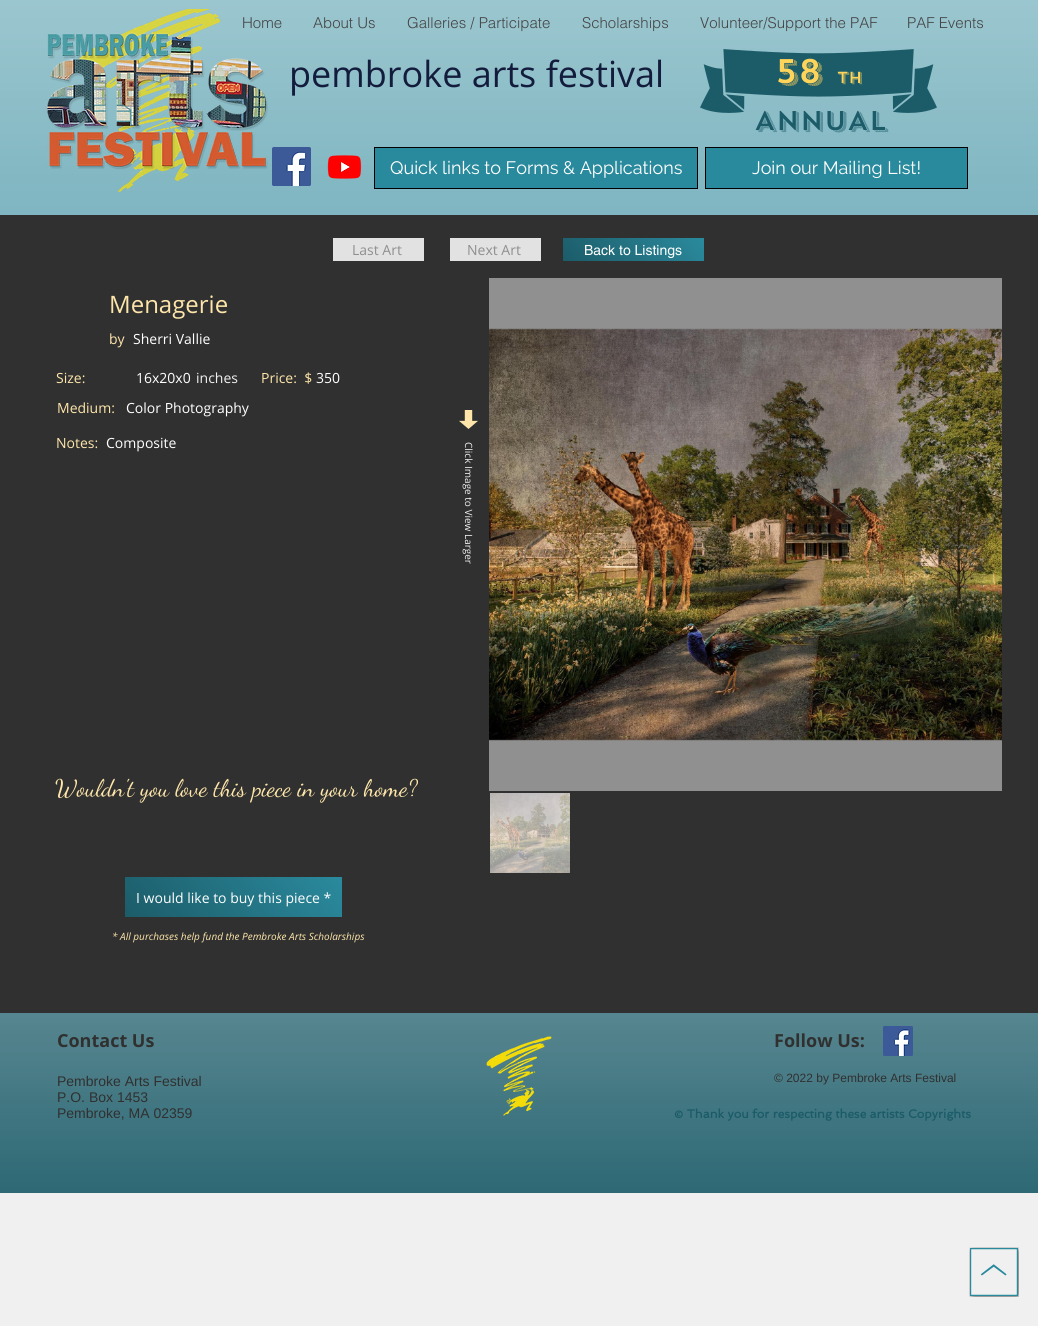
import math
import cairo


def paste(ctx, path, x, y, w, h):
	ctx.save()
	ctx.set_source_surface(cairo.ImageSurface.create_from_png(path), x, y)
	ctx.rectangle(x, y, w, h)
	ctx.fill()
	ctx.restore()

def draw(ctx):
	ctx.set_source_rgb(0.941, 0.941, 0.941)
	ctx.paint()
	ctx.set_source_rgb(0.471, 0.698, 0.745)
	ctx.rectangle(0, 0, 1038, 215)
	ctx.fill()
	paste(ctx, 'media/1.png', 0, 0, 1038, 215)
	ctx.select_font_face('helvetica Light')
	ctx.set_font_size(15)
	ctx.set_source_rgb(0.267, 0.267, 0.267)
	ctx.move_to(242, 28)
	ctx.show_text('Home')
	paste(ctx, 'media/2.png', 47, 9, 221, 183)
	for x, y, s in [
		(313, 28, 'About Us'),
		(407, 28, 'Galleries / Participate'),
		(582, 28, 'Scholarships'),
		(700, 28, 'Volunteer/Support the PAF'),
		(907, 28, 'PAF Events'),
	]:
		ctx.move_to(x, y)
		ctx.show_text(s)
	paste(ctx, 'media/3.png', 700, 49, 237, 64)
	ctx.select_font_face('Open Sans')
	ctx.set_font_size(36)
	ctx.set_source_rgb(0.075, 0.11, 0.235)
	ctx.move_to(289, 87)
	ctx.show_text('pembroke arts festival')
	ctx.select_font_face('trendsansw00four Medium')
	ctx.set_font_size(34)
	ctx.set_source_rgb(1, 0.831, 0.353)
	ctx.move_to(775, 83)
	ctx.show_text('58')
	ctx.set_font_size(16)
	ctx.move_to(837, 83)
	ctx.show_text('TH')
	ctx.set_font_size(27)
	ctx.set_source_rgb(0.11, 0.361, 0.412)
	ctx.move_to(754, 130)
	ctx.show_text('ANNUAL')
	paste(ctx, 'media/4.png', 272, 147, 39, 39)
	paste(ctx, 'media/5.png', 327, 155, 35, 24)
	ctx.set_source_rgb(0.165, 0.541, 0.616)
	ctx.rectangle(374.5, 147.5, 323, 41)
	ctx.fill_preserve()
	ctx.set_source_rgb(0, 0, 0)
	ctx.set_line_width(1)
	ctx.stroke()
	ctx.select_font_face('Raleway')
	ctx.set_font_size(18)
	ctx.set_source_rgb(1, 1, 1)
	ctx.move_to(390, 174)
	ctx.show_text('Quick links to Forms & Applications')
	ctx.set_source_rgb(0.165, 0.541, 0.616)
	ctx.rectangle(705.5, 147.5, 262, 41)
	ctx.fill_preserve()
	ctx.set_source_rgb(0, 0, 0)
	ctx.stroke()
	ctx.set_source_rgb(1, 1, 1)
	ctx.move_to(752, 174)
	ctx.show_text('Join our Mailing List!')
	ctx.set_source_rgb(0.188, 0.188, 0.188)
	ctx.rectangle(0, 215, 1038, 798)
	ctx.fill()
	ctx.set_source_rgb(0.886, 0.886, 0.886)
	ctx.rectangle(333, 238, 91, 23)
	ctx.fill()
	ctx.select_font_face('Open Sans')
	ctx.set_font_size(14)
	ctx.set_source_rgb(0.561, 0.561, 0.561)
	ctx.move_to(352, 255)
	ctx.show_text('Last Art')
	ctx.set_source_rgb(0.886, 0.886, 0.886)
	ctx.rectangle(450, 238, 91, 23)
	ctx.fill()
	ctx.set_source_rgb(0.561, 0.561, 0.561)
	ctx.move_to(467, 255)
	ctx.show_text('Next Art')
	gradient = cairo.LinearGradient(679, 210, 588, 289)
	gradient.add_color_stop_rgba(0, 0.165, 0.541, 0.616, 1)
	gradient.add_color_stop_rgba(1, 0.11, 0.361, 0.412, 1)
	ctx.set_source(gradient)
	ctx.rectangle(563, 238, 141, 23)
	ctx.fill()
	ctx.select_font_face('helvetica')
	ctx.set_source_rgb(1, 1, 1)
	ctx.move_to(584, 255)
	ctx.show_text('Back to Listings')
	ctx.select_font_face('Open Sans')
	ctx.set_font_size(24)
	ctx.set_source_rgb(0.996, 0.902, 0.667)
	ctx.move_to(109, 313)
	ctx.show_text('Menagerie')
	ctx.set_source_rgb(0.565, 0.565, 0.565)
	ctx.rectangle(489, 278, 513, 513)
	ctx.fill()
	paste(ctx, 'media/6.png', 489, 328, 513, 413)
	paste(ctx, 'media/7.png', 490, 793, 80, 80)
	ctx.set_font_size(14)
	ctx.set_source_rgb(0.996, 0.902, 0.667)
	ctx.move_to(109, 344)
	ctx.show_text('by')
	ctx.set_source_rgb(1, 1, 1)
	ctx.move_to(133, 344)
	ctx.show_text('Sherri Vallie')
	ctx.set_source_rgb(0.996, 0.902, 0.667)
	ctx.move_to(56, 383)
	ctx.show_text('Size:')
	ctx.set_source_rgb(1, 1, 1)
	ctx.move_to(136, 383)
	ctx.show_text('16x20x0')
	ctx.set_source_rgb(0.941, 0.941, 0.941)
	ctx.move_to(196, 383)
	ctx.show_text('inches')
	ctx.set_source_rgb(0.996, 0.902, 0.667)
	ctx.move_to(261, 383)
	ctx.show_text('Price:  $')
	ctx.set_source_rgb(1, 1, 1)
	ctx.move_to(316, 383)
	ctx.show_text('350')
	ctx.set_source_rgb(0.996, 0.902, 0.667)
	ctx.move_to(57, 413)
	ctx.show_text('Medium:')
	ctx.set_source_rgb(1, 1, 1)
	ctx.move_to(126, 413)
	ctx.show_text('Color Photography')
	paste(ctx, 'media/8.png', 459, 410, 19, 19)
	ctx.set_source_rgb(0.996, 0.902, 0.667)
	ctx.move_to(56, 448)
	ctx.show_text('Notes:')
	ctx.set_source_rgb(1, 1, 1)
	ctx.move_to(106, 448)
	ctx.show_text('Composite')
	ctx.set_font_size(10)
	ctx.set_source_rgb(0.941, 0.941, 0.941)
	ctx.save()
	ctx.translate(465, 442)
	ctx.rotate(90 * math.pi / 180)
	ctx.move_to(0, 0)
	ctx.show_text('Click Image to View Larger')
	ctx.restore()
	ctx.select_font_face('Dancing Script')
	ctx.set_font_size(24)
	ctx.set_source_rgb(0.996, 0.902, 0.667)
	ctx.move_to(55, 796)
	ctx.show_text('Wouldn\'t you love this piece in your home?')
	gradient = cairo.LinearGradient(305, 835, 162, 959)
	gradient.add_color_stop_rgba(0, 0.165, 0.541, 0.616, 1)
	gradient.add_color_stop_rgba(1, 0.11, 0.361, 0.412, 1)
	ctx.set_source(gradient)
	ctx.rectangle(125, 877, 217, 40)
	ctx.fill()
	ctx.select_font_face('Open Sans')
	ctx.set_font_size(14)
	ctx.set_source_rgb(1, 1, 1)
	ctx.move_to(136, 903)
	ctx.show_text('I would like to buy this piece *')
	ctx.select_font_face('Open Sans', cairo.FONT_SLANT_ITALIC)
	ctx.set_font_size(10)
	ctx.set_source_rgb(0.996, 0.902, 0.667)
	ctx.move_to(112, 940)
	ctx.show_text('* All purchases help fund the Pembroke Arts Scholarships')
	ctx.set_source_rgb(0.11, 0.361, 0.412)
	ctx.rectangle(0, 1013, 1038, 180)
	ctx.fill()
	paste(ctx, 'media/9.png', 0, 1013, 1038, 180)
	ctx.select_font_face('Open Sans', cairo.FONT_SLANT_NORMAL, cairo.FONT_WEIGHT_BOLD)
	ctx.set_font_size(18)
	ctx.set_source_rgb(0.188, 0.188, 0.188)
	ctx.move_to(57, 1047)
	ctx.show_text('Contact Us')
	ctx.select_font_face('Liberation Sans')
	ctx.set_font_size(14)
	for x, y, s in [
		(57, 1086, 'Pembroke Arts Festival'),
		(57, 1102, 'P.O. Box 1453'),
		(57, 1118, 'Pembroke, MA 02359'),
	]:
		ctx.move_to(x, y)
		ctx.show_text(s)
	paste(ctx, 'media/10.png', 883, 1026, 30, 30)
	paste(ctx, 'media/11.png', 486, 1036, 66, 80)
	ctx.select_font_face('Open Sans', cairo.FONT_SLANT_NORMAL, cairo.FONT_WEIGHT_BOLD)
	ctx.set_font_size(18)
	ctx.move_to(774, 1047)
	ctx.show_text('Follow Us:')
	ctx.select_font_face('Liberation Sans')
	ctx.set_font_size(12)
	ctx.move_to(774, 1082)
	ctx.show_text('© 2022 by Pembroke Arts Festival')
	ctx.select_font_face('Spinnaker', cairo.FONT_SLANT_NORMAL, cairo.FONT_WEIGHT_BOLD)
	ctx.set_source_rgb(0.11, 0.361, 0.412)
	ctx.move_to(674, 1118)
	ctx.show_text('© Thank you for respecting these artists Copyrights')
	paste(ctx, 'media/12.png', 969, 1247, 50, 50)


surface = cairo.ImageSurface(cairo.FORMAT_RGB24, 1038, 1326)
ctx = cairo.Context(surface)
options = cairo.FontOptions()
options.set_hint_metrics(cairo.HINT_METRICS_OFF)
options.set_hint_style(cairo.HINT_STYLE_NONE)
ctx.set_font_options(options)
ctx.set_miter_limit(4)
draw(ctx)
surface.write_to_png('image.png')
